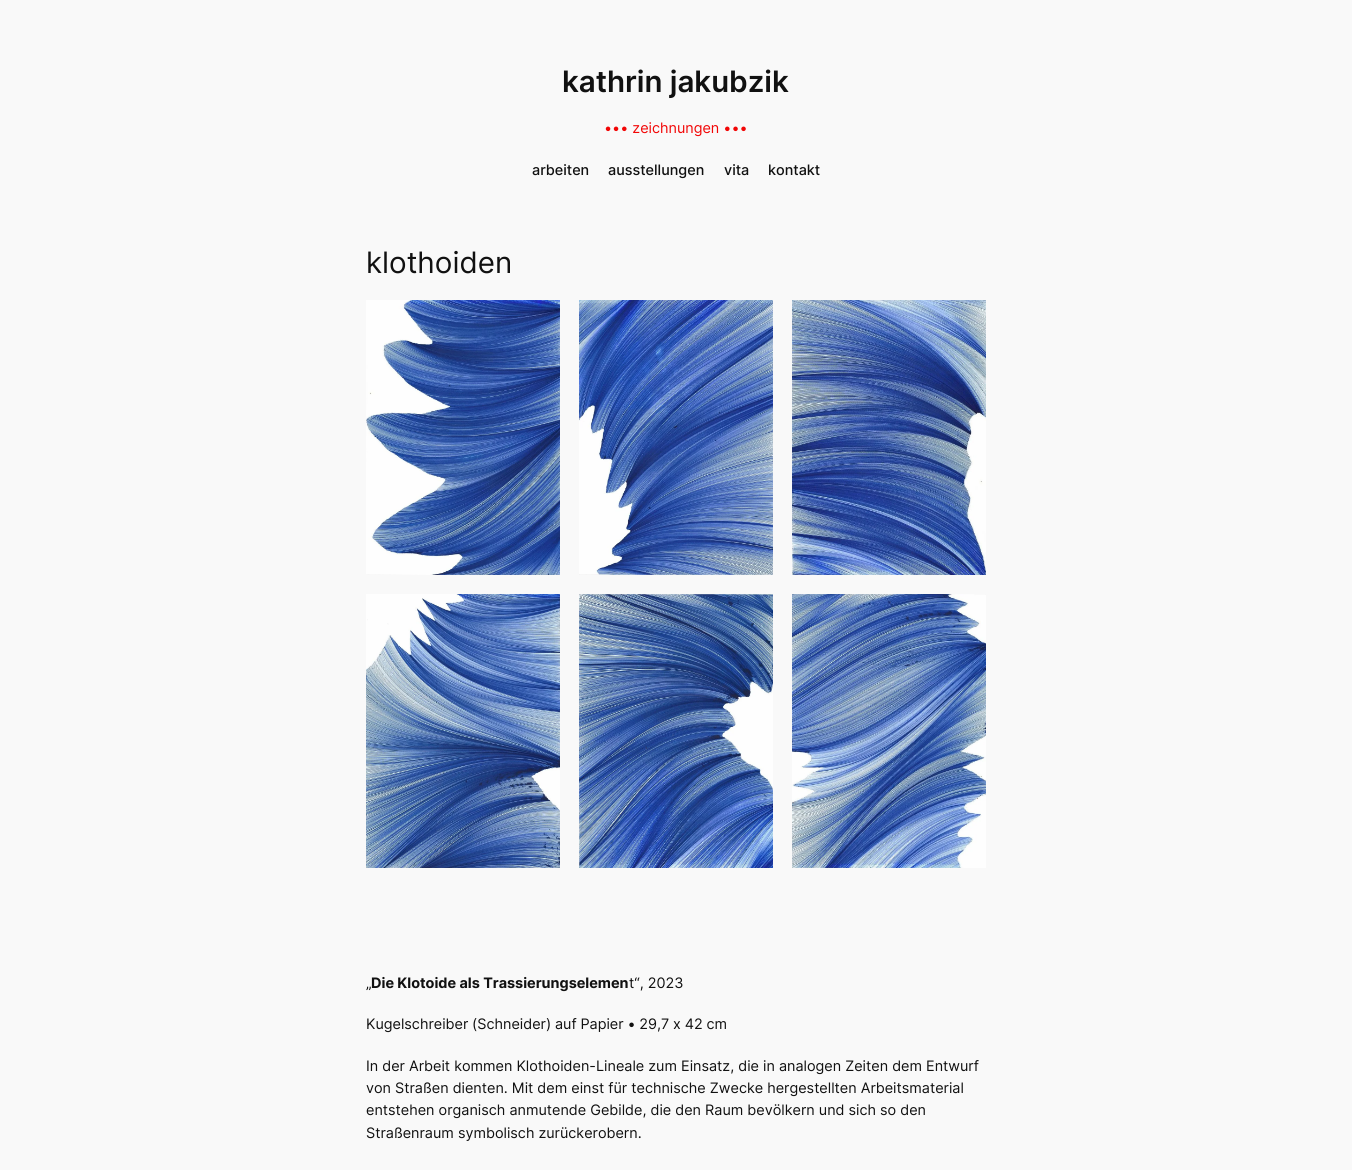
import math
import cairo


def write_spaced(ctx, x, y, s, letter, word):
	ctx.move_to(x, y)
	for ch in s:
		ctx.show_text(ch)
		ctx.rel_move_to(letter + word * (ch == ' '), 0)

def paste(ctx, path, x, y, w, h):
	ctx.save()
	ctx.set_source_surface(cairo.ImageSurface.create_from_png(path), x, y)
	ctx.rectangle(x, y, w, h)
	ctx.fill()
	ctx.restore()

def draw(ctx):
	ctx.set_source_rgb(0.976, 0.976, 0.976)
	ctx.paint()
	ctx.select_font_face('Inter SemiBold')
	ctx.set_font_size(29.5)
	ctx.set_source_rgb(0.067, 0.067, 0.067)
	ctx.move_to(562, 92)
	ctx.show_text('kathrin jakubzik')
	ctx.select_font_face('Inter')
	ctx.set_font_size(14.4)
	ctx.set_source_rgb(0.949, 0.027, 0.027)
	ctx.move_to(604, 133)
	ctx.show_text('••• zeichnungen •••')
	ctx.select_font_face('Inter Medium')
	ctx.set_source_rgb(0.067, 0.067, 0.067)
	for x, y, s in [
		(532, 175, 'arbeiten'),
		(608, 175, 'ausstellungen'),
		(724, 175, 'vita'),
		(768, 175, 'kontakt'),
	]:
		ctx.move_to(x, y)
		ctx.show_text(s)
	ctx.select_font_face('Inter')
	ctx.set_font_size(29.5)
	ctx.move_to(366, 273)
	ctx.show_text('klothoiden')
	paste(ctx, 'media/1.png', 366, 300, 194, 275)
	paste(ctx, 'media/2.png', 579, 300, 194, 275)
	paste(ctx, 'media/3.png', 792, 300, 194, 275)
	paste(ctx, 'media/4.png', 366, 594, 194, 274)
	paste(ctx, 'media/5.png', 579, 594, 194, 274)
	paste(ctx, 'media/6.png', 792, 594, 194, 274)
	ctx.set_font_size(14.4)
	ctx.move_to(366, 988)
	ctx.show_text('„')
	ctx.select_font_face('Inter', cairo.FONT_SLANT_NORMAL, cairo.FONT_WEIGHT_BOLD)
	ctx.move_to(371, 988)
	ctx.show_text('Die Klotoide als Trassierungselemen')
	ctx.select_font_face('Inter')
	ctx.move_to(629, 988)
	ctx.show_text('t“, 2023')
	write_spaced(ctx, 366, 1029, 'Kugelschreiber (Schneider) auf Papier • 29,7 x 42 cm', 0, -0.25)
	for x, y, s in [
		(366, 1071, 'In der Arbeit kommen Klothoiden-Lineale zum Einsatz, die in analogen Zeiten dem Entwurf'),
		(366, 1093, 'von Straßen dienten. Mit dem einst für technische Zwecke hergestellten Arbeitsmaterial'),
		(366, 1115, 'entstehen organisch anmutende Gebilde, die den Raum bevölkern und sich so den'),
		(366, 1138, 'Straßenraum symbolisch zurückerobern.'),
	]:
		ctx.move_to(x, y)
		ctx.show_text(s)


surface = cairo.ImageSurface(cairo.FORMAT_RGB24, 1352, 1170)
ctx = cairo.Context(surface)
options = cairo.FontOptions()
options.set_hint_metrics(cairo.HINT_METRICS_OFF)
options.set_hint_style(cairo.HINT_STYLE_NONE)
ctx.set_font_options(options)
ctx.set_miter_limit(4)
draw(ctx)
surface.write_to_png('image.png')
